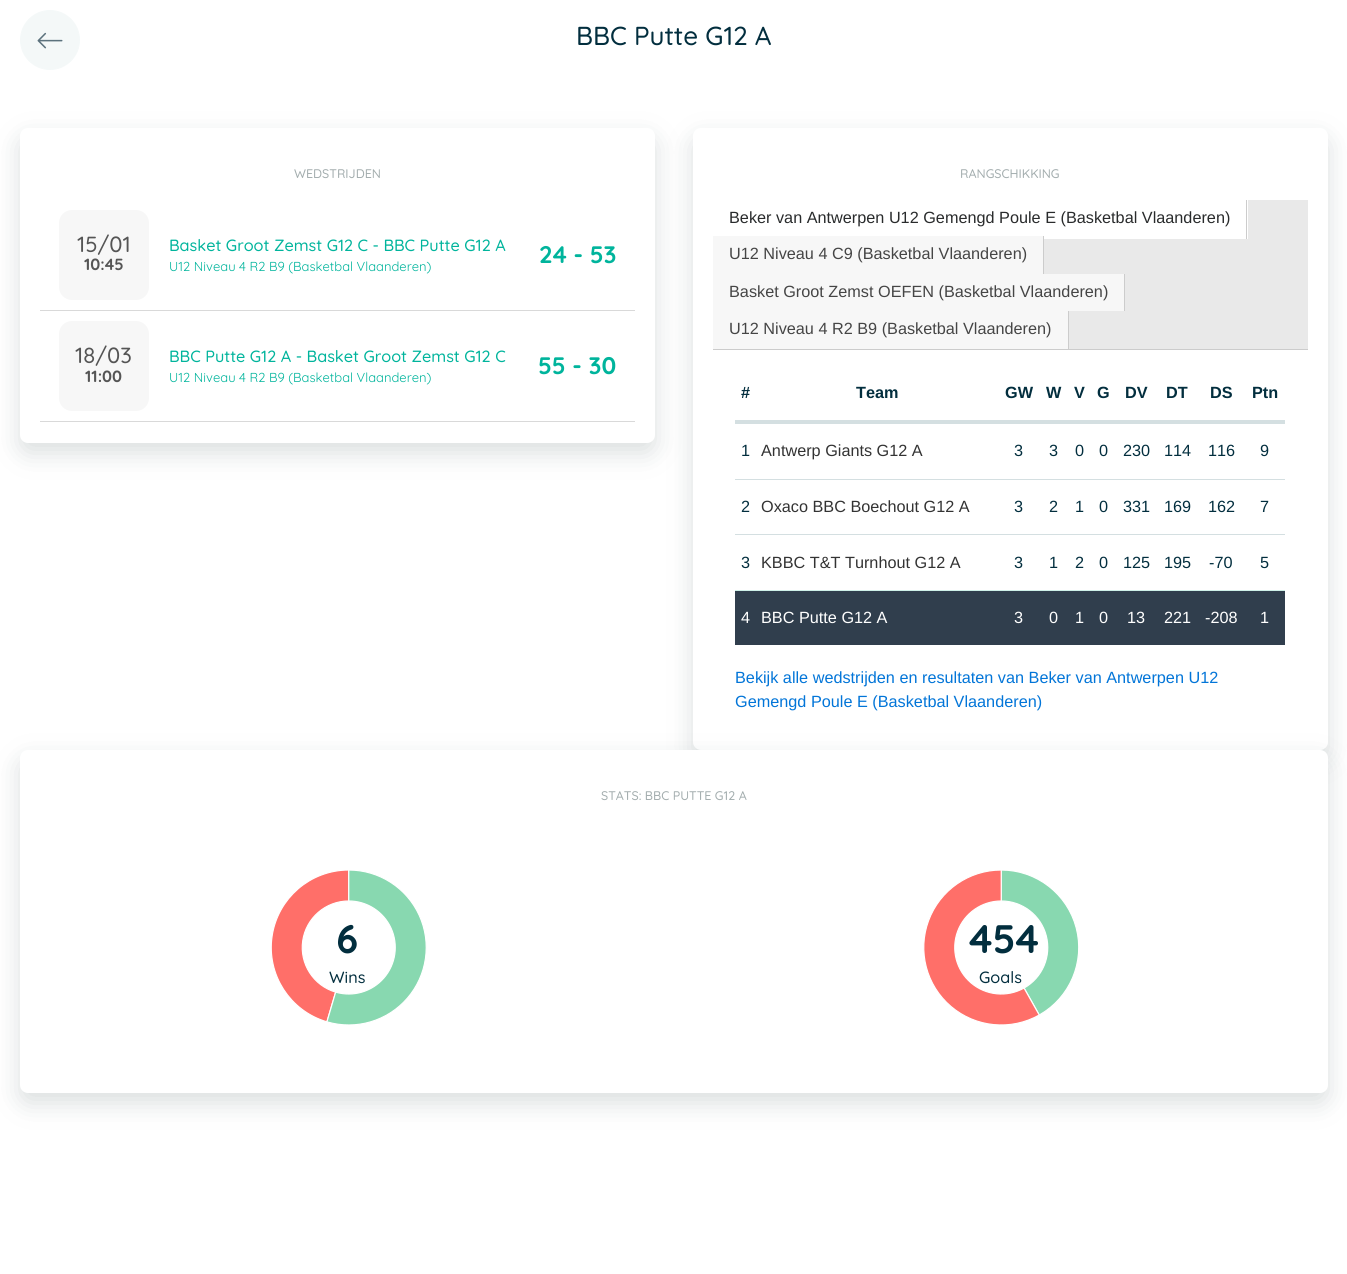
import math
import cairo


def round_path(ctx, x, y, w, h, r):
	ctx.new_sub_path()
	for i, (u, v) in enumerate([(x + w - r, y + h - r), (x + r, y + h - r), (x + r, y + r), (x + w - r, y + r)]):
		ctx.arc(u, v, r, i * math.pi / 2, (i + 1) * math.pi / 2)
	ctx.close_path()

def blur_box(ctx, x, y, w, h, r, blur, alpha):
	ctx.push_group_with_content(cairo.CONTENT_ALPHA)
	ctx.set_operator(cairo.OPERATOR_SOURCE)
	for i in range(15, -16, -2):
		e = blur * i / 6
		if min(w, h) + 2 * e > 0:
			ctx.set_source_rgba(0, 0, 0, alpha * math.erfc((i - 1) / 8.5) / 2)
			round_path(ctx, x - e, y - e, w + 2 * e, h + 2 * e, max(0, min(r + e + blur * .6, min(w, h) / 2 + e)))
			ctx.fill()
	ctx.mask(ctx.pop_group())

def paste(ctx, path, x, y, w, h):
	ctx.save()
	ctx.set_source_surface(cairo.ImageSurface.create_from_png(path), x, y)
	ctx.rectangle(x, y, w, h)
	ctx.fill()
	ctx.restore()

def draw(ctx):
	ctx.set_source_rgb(1, 1, 1)
	ctx.paint()
	ctx.set_source_rgb(0.957, 0.969, 0.969)
	ctx.arc(50, 40, 29.5, 0, 2 * math.pi)
	ctx.fill_preserve()
	ctx.set_line_width(1)
	ctx.stroke()
	paste(ctx, 'media/1.png', 37, 32, 26, 17)
	ctx.select_font_face('Quicksand Medium')
	ctx.set_font_size(26)
	ctx.set_source_rgb(0.008, 0.18, 0.243)
	ctx.move_to(576, 45)
	ctx.show_text('BBC Putte G12 A')
	ctx.set_source_rgb(0.278, 0.361, 0.365)
	blur_box(ctx, 20, 138, 635, 315, 8, 12.5, 0.2)
	ctx.set_source_rgb(1, 1, 1)
	round_path(ctx, 20, 128, 635, 315, 8)
	ctx.fill()
	ctx.set_font_size(12.5)
	ctx.set_source_rgb(0.639, 0.678, 0.682)
	ctx.move_to(294, 178)
	ctx.show_text('WEDSTRIJDEN')
	ctx.set_source_rgb(0.851, 0.851, 0.851)
	ctx.rectangle(40, 310, 595, 1)
	ctx.fill()
	ctx.set_source_rgb(0.965, 0.965, 0.965)
	round_path(ctx, 59, 210, 90, 90, 13)
	ctx.fill()
	ctx.set_font_size(22)
	ctx.set_source_rgb(0.333, 0.333, 0.333)
	ctx.move_to(77, 252)
	ctx.show_text('15/01')
	ctx.select_font_face('Quicksand', cairo.FONT_SLANT_NORMAL, cairo.FONT_WEIGHT_BOLD)
	ctx.set_font_size(16.25)
	ctx.move_to(84, 270)
	ctx.show_text('10:45')
	ctx.select_font_face('Quicksand Medium')
	ctx.set_source_rgb(0, 0.706, 0.612)
	ctx.move_to(169, 251)
	ctx.show_text('Basket Groot Zemst G12 C - BBC Putte G12 A')
	ctx.select_font_face('Quicksand')
	ctx.set_font_size(13)
	ctx.move_to(169, 271)
	ctx.show_text('U12 Niveau 4 R2 B9 (Basketbal Vlaanderen)')
	ctx.select_font_face('Quicksand', cairo.FONT_SLANT_NORMAL, cairo.FONT_WEIGHT_BOLD)
	ctx.set_font_size(24)
	ctx.move_to(539, 263)
	ctx.show_text('24 - 53')
	ctx.set_source_rgb(0.851, 0.851, 0.851)
	ctx.rectangle(40, 421, 595, 1)
	ctx.fill()
	ctx.set_source_rgb(0.965, 0.965, 0.965)
	round_path(ctx, 59, 321, 90, 90, 13)
	ctx.fill()
	ctx.select_font_face('Quicksand Medium')
	ctx.set_font_size(22)
	ctx.set_source_rgb(0.333, 0.333, 0.333)
	ctx.move_to(75, 363)
	ctx.show_text('18/03')
	ctx.select_font_face('Quicksand', cairo.FONT_SLANT_NORMAL, cairo.FONT_WEIGHT_BOLD)
	ctx.set_font_size(16.25)
	ctx.move_to(85, 382)
	ctx.show_text('11:00')
	ctx.select_font_face('Quicksand Medium')
	ctx.set_source_rgb(0, 0.706, 0.612)
	ctx.move_to(169, 362)
	ctx.show_text('BBC Putte G12 A - Basket Groot Zemst G12 C')
	ctx.select_font_face('Quicksand')
	ctx.set_font_size(13)
	ctx.move_to(169, 382)
	ctx.show_text('U12 Niveau 4 R2 B9 (Basketbal Vlaanderen)')
	ctx.select_font_face('Quicksand', cairo.FONT_SLANT_NORMAL, cairo.FONT_WEIGHT_BOLD)
	ctx.set_font_size(24)
	ctx.move_to(538, 374)
	ctx.show_text('55 - 30')
	ctx.set_source_rgb(0.278, 0.361, 0.365)
	blur_box(ctx, 693, 138, 635, 622, 8, 12.5, 0.2)
	ctx.set_source_rgb(1, 1, 1)
	round_path(ctx, 693, 128, 635, 622, 8)
	ctx.fill()
	ctx.select_font_face('Quicksand Medium')
	ctx.set_font_size(12.5)
	ctx.set_source_rgb(0.639, 0.678, 0.682)
	ctx.move_to(960, 178)
	ctx.show_text('RANGSCHIKKING')
	ctx.set_source_rgb(0.914, 0.914, 0.914)
	ctx.rectangle(1044, 200, 264, 149)
	ctx.fill()
	ctx.set_source_rgb(0.8, 0.8, 0.8)
	ctx.rectangle(713, 349, 595, 1)
	ctx.fill()
	ctx.set_source_rgb(1, 1, 1)
	ctx.rectangle(1044, 200, 204, 39)
	ctx.fill()
	ctx.set_source_rgb(0.8, 0.8, 0.8)
	ctx.rectangle(1246, 200, 1, 39)
	ctx.fill()
	ctx.select_font_face('Liberation Sans')
	ctx.set_font_size(16.25)
	ctx.set_source_rgb(0.161, 0.169, 0.173)
	ctx.move_to(729, 223)
	ctx.show_text('Beker van Antwerpen U12 Gemengd Poule E (Basketbal Vlaanderen)')
	ctx.set_source_rgb(0.965, 0.965, 0.965)
	ctx.rectangle(713, 236, 330, 38)
	ctx.fill()
	ctx.set_source_rgb(0.8, 0.8, 0.8)
	ctx.rectangle(1043, 236, 1, 38)
	ctx.fill()
	ctx.set_source_rgb(0.271, 0.271, 0.271)
	ctx.move_to(729, 259)
	ctx.show_text('U12 Niveau 4 C9 (Basketbal Vlaanderen)')
	ctx.set_source_rgb(0.965, 0.965, 0.965)
	ctx.rectangle(713, 274, 411, 37)
	ctx.fill()
	ctx.set_source_rgb(0.8, 0.8, 0.8)
	ctx.rectangle(1124, 274, 1, 37)
	ctx.fill()
	ctx.set_source_rgb(0.271, 0.271, 0.271)
	ctx.move_to(729, 297)
	ctx.show_text('Basket Groot Zemst OEFEN (Basketbal Vlaanderen)')
	ctx.set_source_rgb(0.965, 0.965, 0.965)
	ctx.rectangle(713, 311, 355, 38)
	ctx.fill()
	ctx.set_source_rgb(0.8, 0.8, 0.8)
	ctx.rectangle(1068, 311, 1, 38)
	ctx.fill()
	ctx.set_source_rgb(0.271, 0.271, 0.271)
	ctx.move_to(729, 334)
	ctx.show_text('U12 Niveau 4 R2 B9 (Basketbal Vlaanderen)')
	ctx.set_source_rgb(0.831, 0.875, 0.882)
	ctx.rectangle(735, 420, 550, 3)
	ctx.fill()
	ctx.select_font_face('Liberation Sans', cairo.FONT_SLANT_NORMAL, cairo.FONT_WEIGHT_BOLD)
	ctx.set_source_rgb(0.008, 0.18, 0.243)
	for x, y, s in [
		(741, 398, '#'),
		(856, 398, 'Team'),
		(1005, 398, 'GW'),
		(1046, 398, 'W'),
		(1074, 398, 'V'),
		(1097, 398, 'G'),
		(1125, 398, 'DV'),
		(1166, 398, 'DT'),
		(1210, 398, 'DS'),
		(1252, 398, 'Ptn'),
	]:
		ctx.move_to(x, y)
		ctx.show_text(s)
	ctx.set_source_rgb(0.831, 0.875, 0.882)
	ctx.rectangle(735, 423, 550, 1)
	ctx.fill()
	ctx.select_font_face('Liberation Sans')
	ctx.set_source_rgb(0.008, 0.18, 0.243)
	ctx.move_to(741, 456)
	ctx.show_text('1')
	ctx.set_source_rgb(0.2, 0.2, 0.2)
	ctx.move_to(761, 456)
	ctx.show_text('Antwerp Giants G12 A')
	ctx.set_source_rgb(0.008, 0.18, 0.243)
	for x, y, s in [
		(1014, 456, '3'),
		(1049, 456, '3'),
		(1075, 456, '0'),
		(1099, 456, '0'),
		(1123, 456, '230'),
		(1164, 456, '114'),
		(1208, 456, '116'),
		(1260, 456, '9'),
	]:
		ctx.move_to(x, y)
		ctx.show_text(s)
	ctx.set_source_rgb(0.831, 0.875, 0.882)
	ctx.rectangle(735, 479, 550, 1)
	ctx.fill()
	ctx.set_source_rgb(0.008, 0.18, 0.243)
	ctx.move_to(741, 512)
	ctx.show_text('2')
	ctx.set_source_rgb(0.2, 0.2, 0.2)
	ctx.move_to(761, 512)
	ctx.show_text('Oxaco BBC Boechout G12 A')
	ctx.set_source_rgb(0.008, 0.18, 0.243)
	for x, y, s in [
		(1014, 512, '3'),
		(1049, 512, '2'),
		(1075, 512, '1'),
		(1099, 512, '0'),
		(1123, 512, '331'),
		(1164, 512, '169'),
		(1208, 512, '162'),
		(1260, 512, '7'),
	]:
		ctx.move_to(x, y)
		ctx.show_text(s)
	ctx.set_source_rgb(0.831, 0.875, 0.882)
	ctx.rectangle(735, 534, 550, 1)
	ctx.fill()
	ctx.set_source_rgb(0.008, 0.18, 0.243)
	ctx.move_to(741, 568)
	ctx.show_text('3')
	ctx.set_source_rgb(0.2, 0.2, 0.2)
	ctx.move_to(761, 568)
	ctx.show_text('KBBC T&T Turnhout G12 A')
	ctx.set_source_rgb(0.008, 0.18, 0.243)
	for x, y, s in [
		(1014, 568, '3'),
		(1049, 568, '1'),
		(1075, 568, '2'),
		(1099, 568, '0'),
		(1123, 568, '125'),
		(1164, 568, '195'),
		(1209, 568, '-70'),
		(1260, 568, '5'),
	]:
		ctx.move_to(x, y)
		ctx.show_text(s)
	ctx.set_source_rgb(0.188, 0.243, 0.302)
	ctx.rectangle(735, 591, 550, 54)
	ctx.fill()
	ctx.set_source_rgb(0.812, 0.945, 0.91)
	ctx.rectangle(735, 590, 550, 1)
	ctx.fill()
	ctx.set_source_rgb(1, 1, 1)
	for x, y, s in [
		(741, 623, '4'),
		(761, 623, 'BBC Putte G12 A'),
		(1014, 623, '3'),
		(1049, 623, '0'),
		(1075, 623, '1'),
		(1099, 623, '0'),
		(1127, 623, '13'),
		(1164, 623, '221'),
		(1205, 623, '-208'),
		(1260, 623, '1'),
	]:
		ctx.move_to(x, y)
		ctx.show_text(s)
	ctx.set_source_rgb(0.008, 0.459, 0.847)
	ctx.move_to(735, 683)
	ctx.show_text('Bekijk alle wedstrijden en resultaten van Beker van Antwerpen U12')
	ctx.move_to(735, 707)
	ctx.show_text('Gemengd Poule E (Basketbal Vlaanderen)')
	ctx.set_source_rgb(0.278, 0.361, 0.365)
	blur_box(ctx, 20, 760, 1308, 343, 8, 12.5, 0.2)
	ctx.set_source_rgb(1, 1, 1)
	round_path(ctx, 20, 750, 1308, 343, 8)
	ctx.fill()
	ctx.select_font_face('Quicksand Medium')
	ctx.set_font_size(12.5)
	ctx.set_source_rgb(0.639, 0.678, 0.682)
	ctx.move_to(601, 800)
	ctx.show_text('STATS: BBC PUTTE G12 A')
	paste(ctx, 'media/2.png', 271, 870, 156, 155)
	ctx.select_font_face('Quicksand', cairo.FONT_SLANT_NORMAL, cairo.FONT_WEIGHT_BOLD)
	ctx.set_font_size(40)
	ctx.set_source_rgb(0.008, 0.18, 0.243)
	ctx.move_to(336, 953)
	ctx.show_text('6')
	ctx.select_font_face('Quicksand Medium')
	ctx.set_font_size(16.25)
	ctx.move_to(329, 983)
	ctx.show_text('Wins')
	paste(ctx, 'media/3.png', 923, 870, 156, 155)
	ctx.select_font_face('Quicksand', cairo.FONT_SLANT_NORMAL, cairo.FONT_WEIGHT_BOLD)
	ctx.set_font_size(40)
	ctx.move_to(969, 953)
	ctx.show_text('454')
	ctx.select_font_face('Quicksand Medium')
	ctx.set_font_size(16.25)
	ctx.move_to(979, 983)
	ctx.show_text('Goals')


surface = cairo.ImageSurface(cairo.FORMAT_RGB24, 1347, 1274)
ctx = cairo.Context(surface)
options = cairo.FontOptions()
options.set_hint_metrics(cairo.HINT_METRICS_OFF)
options.set_hint_style(cairo.HINT_STYLE_NONE)
ctx.set_font_options(options)
ctx.set_miter_limit(4)
draw(ctx)
surface.write_to_png('image.png')
